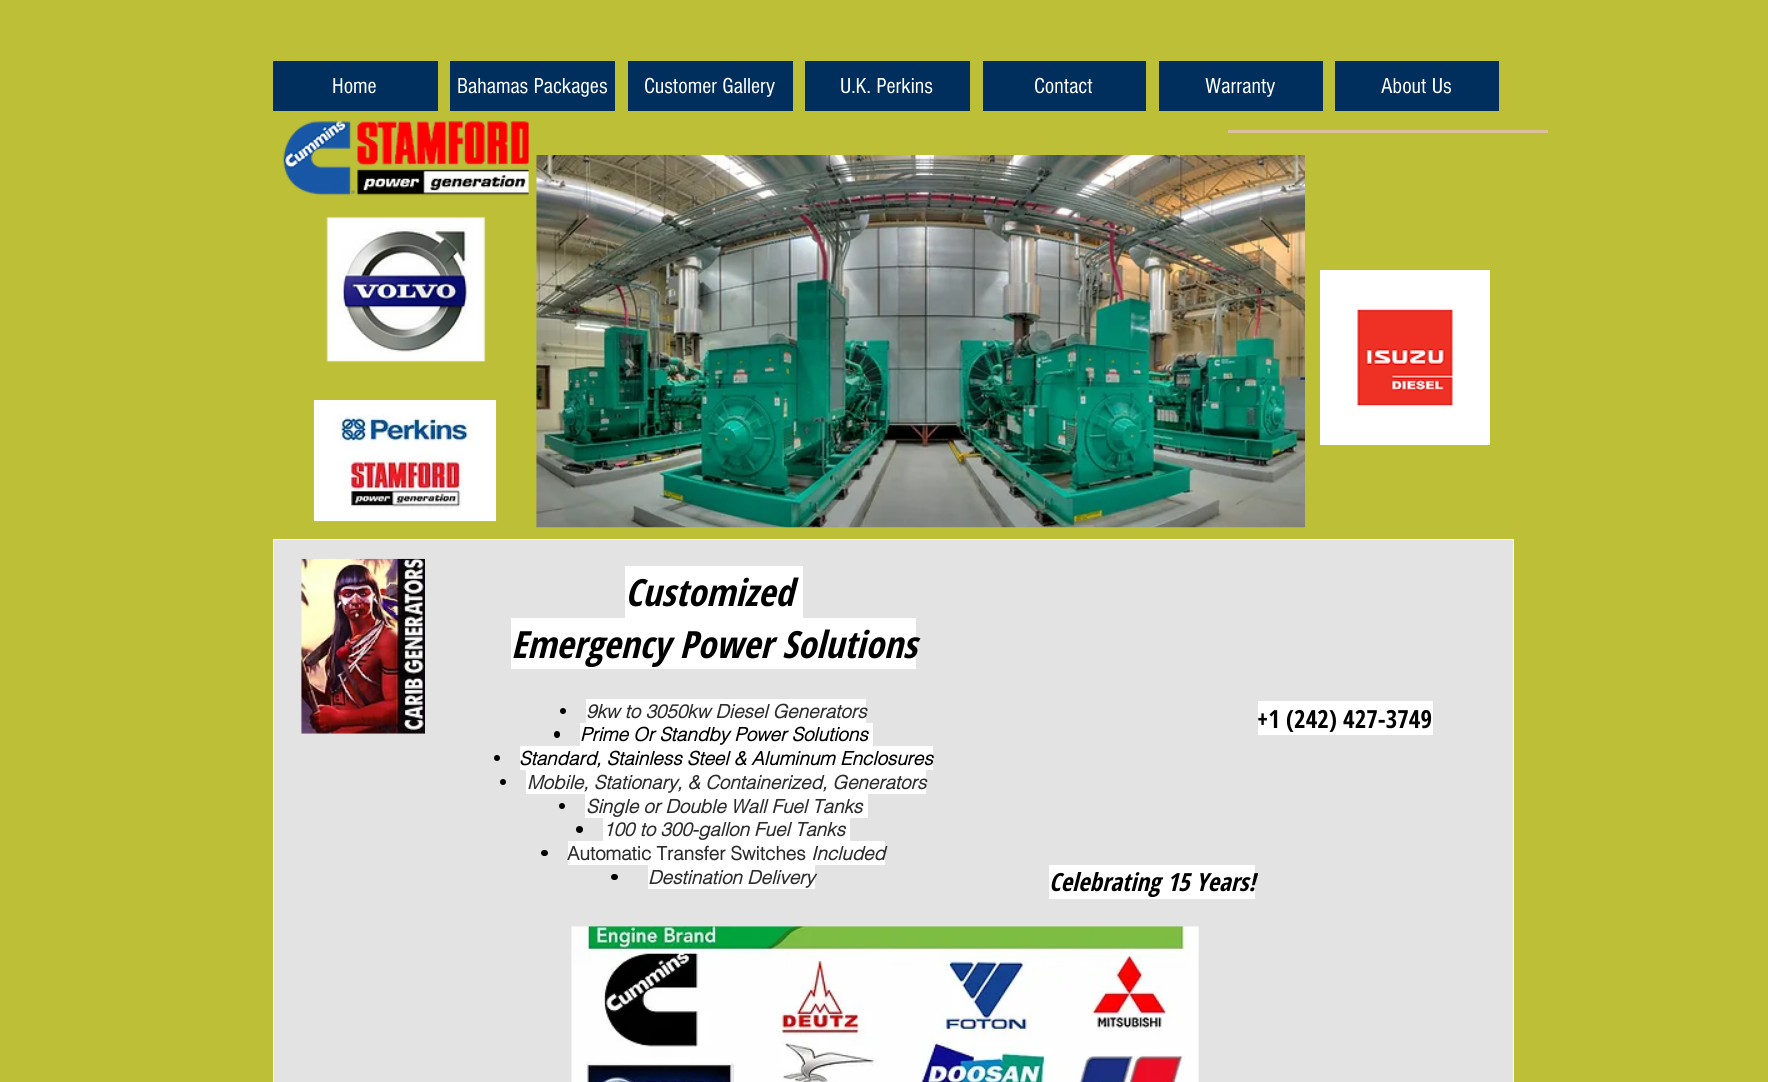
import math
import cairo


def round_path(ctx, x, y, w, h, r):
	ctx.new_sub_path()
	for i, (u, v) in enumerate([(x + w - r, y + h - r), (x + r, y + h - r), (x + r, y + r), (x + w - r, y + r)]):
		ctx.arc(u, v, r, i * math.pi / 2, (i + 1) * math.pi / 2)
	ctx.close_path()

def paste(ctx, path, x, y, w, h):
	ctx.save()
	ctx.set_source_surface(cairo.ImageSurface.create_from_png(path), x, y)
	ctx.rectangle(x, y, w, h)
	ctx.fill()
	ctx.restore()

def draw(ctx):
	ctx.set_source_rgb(0.741, 0.749, 0.216)
	ctx.paint()
	ctx.set_source_rgb(0, 0.18, 0.365)
	ctx.rectangle(273, 61, 165, 50)
	ctx.fill()
	ctx.select_font_face('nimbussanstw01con')
	ctx.set_font_size(22.5)
	ctx.set_source_rgb(1, 1, 1)
	ctx.move_to(332, 93)
	ctx.show_text('Home')
	ctx.set_source_rgb(0, 0.18, 0.365)
	ctx.rectangle(450, 61, 165, 50)
	ctx.fill()
	ctx.set_source_rgb(1, 1, 1)
	ctx.move_to(457, 93)
	ctx.show_text('Bahamas Packages')
	ctx.set_source_rgb(0, 0.18, 0.365)
	ctx.rectangle(628, 61, 165, 50)
	ctx.fill()
	ctx.set_source_rgb(1, 1, 1)
	ctx.move_to(644, 93)
	ctx.show_text('Customer Gallery')
	ctx.set_source_rgb(0, 0.18, 0.365)
	ctx.rectangle(805, 61, 165, 50)
	ctx.fill()
	ctx.set_source_rgb(1, 1, 1)
	ctx.move_to(840, 93)
	ctx.show_text('U.K. Perkins')
	ctx.set_source_rgb(0, 0.18, 0.365)
	ctx.rectangle(983, 61, 163, 50)
	ctx.fill()
	ctx.set_source_rgb(1, 1, 1)
	ctx.move_to(1034, 93)
	ctx.show_text('Contact')
	ctx.set_source_rgb(0, 0.18, 0.365)
	ctx.rectangle(1159, 61, 164, 50)
	ctx.fill()
	ctx.set_source_rgb(1, 1, 1)
	ctx.move_to(1205, 93)
	ctx.show_text('Warranty')
	ctx.set_source_rgb(0, 0.18, 0.365)
	ctx.rectangle(1335, 61, 164, 50)
	ctx.fill()
	ctx.set_source_rgb(1, 1, 1)
	ctx.move_to(1381, 93)
	ctx.show_text('About Us')
	paste(ctx, 'media/1.png', 283, 121, 246, 75)
	ctx.set_source_rgb(0.867, 0.749, 0.608)
	ctx.rectangle(1228, 130, 320, 3)
	ctx.fill()
	paste(ctx, 'media/2.png', 326, 216, 160, 147)
	paste(ctx, 'media/3.png', 536, 155, 769, 373)
	paste(ctx, 'media/4.png', 1320, 270, 170, 175)
	paste(ctx, 'media/5.png', 313, 400, 184, 122)
	ctx.set_source_rgb(0.89, 0.89, 0.89)
	ctx.rectangle(273.5, 539.5, 1240, 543)
	ctx.fill_preserve()
	ctx.set_source_rgb(1, 1, 1)
	ctx.set_line_width(1)
	ctx.stroke()
	paste(ctx, 'media/6.png', 301, 558, 124, 176)
	ctx.rectangle(625, 566, 178, 52)
	ctx.fill()
	ctx.select_font_face('Open Sans Condensed', cairo.FONT_SLANT_ITALIC, cairo.FONT_WEIGHT_BOLD)
	ctx.set_font_size(37.5)
	ctx.set_source_rgb(0, 0, 0)
	ctx.move_to(625, 606)
	ctx.show_text('Customized')
	ctx.set_source_rgb(1, 1, 1)
	ctx.rectangle(511, 618, 405, 51)
	ctx.fill()
	ctx.set_source_rgb(0, 0, 0)
	ctx.move_to(511, 658)
	ctx.show_text('Emergency Power Solutions')
	ctx.new_path()
	ctx.arc(563, 711, 3, 0, 2 * math.pi)
	ctx.fill()
	ctx.set_source_rgb(1, 1, 1)
	ctx.rectangle(586, 699, 280, 24)
	ctx.fill()
	ctx.select_font_face('helvetica', cairo.FONT_SLANT_ITALIC, cairo.FONT_WEIGHT_BOLD)
	ctx.set_font_size(18.75)
	ctx.set_source_rgb(0.176, 0.176, 0.176)
	ctx.move_to(586, 718)
	ctx.show_text('9kw to 3050kw Diesel Generators')
	ctx.set_source_rgb(0, 0, 0)
	round_path(ctx, 554, 731, 6, 7, 3)
	ctx.fill()
	ctx.set_source_rgb(1, 1, 1)
	ctx.rectangle(580, 723, 293, 23)
	ctx.fill()
	ctx.set_source_rgb(0, 0, 0)
	ctx.move_to(580, 741)
	ctx.show_text('Prime Or Standby Power Solutions')
	ctx.new_path()
	ctx.arc(497, 758, 3, 0, 2 * math.pi)
	ctx.fill()
	ctx.set_source_rgb(1, 1, 1)
	ctx.rectangle(520, 746, 413, 24)
	ctx.fill()
	ctx.set_source_rgb(0, 0, 0)
	ctx.move_to(519, 765)
	ctx.show_text('Standard, Stainless Steel & Aluminum Enclosures')
	ctx.new_path()
	ctx.arc(503, 782, 3, 0, 2 * math.pi)
	ctx.fill()
	ctx.set_source_rgb(1, 1, 1)
	ctx.rectangle(526, 770, 400, 24)
	ctx.fill()
	ctx.set_source_rgb(0.176, 0.176, 0.176)
	ctx.move_to(527, 789)
	ctx.show_text('Mobile, Stationary, & Containerized, Generators')
	ctx.set_source_rgb(0, 0, 0)
	ctx.new_path()
	ctx.arc(562, 806, 3, 0, 2 * math.pi)
	ctx.fill()
	ctx.set_source_rgb(1, 1, 1)
	ctx.rectangle(585, 794, 283, 24)
	ctx.fill()
	ctx.set_source_rgb(0.176, 0.176, 0.176)
	ctx.move_to(586, 813)
	ctx.show_text('Single or Double Wall Fuel Tanks')
	ctx.set_source_rgb(0, 0, 0)
	ctx.new_path()
	ctx.arc(579.5, 829.5, 3.5, 0, 2 * math.pi)
	ctx.fill()
	ctx.set_source_rgb(1, 1, 1)
	ctx.rectangle(603, 818, 247, 23)
	ctx.fill()
	ctx.set_source_rgb(0.176, 0.176, 0.176)
	ctx.move_to(603, 836)
	ctx.show_text('100 to 300-gallon Fuel Tanks')
	ctx.set_source_rgb(0, 0, 0)
	round_path(ctx, 541, 850, 7, 6, 3)
	ctx.fill()
	ctx.set_source_rgb(1, 1, 1)
	ctx.rectangle(568, 841, 317, 24)
	ctx.fill()
	ctx.select_font_face('helvetica', cairo.FONT_SLANT_NORMAL, cairo.FONT_WEIGHT_BOLD)
	ctx.set_source_rgb(0.176, 0.176, 0.176)
	ctx.move_to(567, 860)
	ctx.show_text('Automatic Transfer Switches')
	ctx.select_font_face('helvetica', cairo.FONT_SLANT_ITALIC, cairo.FONT_WEIGHT_BOLD)
	ctx.move_to(811, 860)
	ctx.show_text('Included')
	ctx.set_source_rgb(0, 0, 0)
	round_path(ctx, 611, 874, 7, 6, 3)
	ctx.fill()
	ctx.set_source_rgb(1, 1, 1)
	ctx.rectangle(648, 865, 167, 24)
	ctx.fill()
	ctx.set_source_rgb(0.176, 0.176, 0.176)
	ctx.move_to(648, 884)
	ctx.show_text('Destination Delivery')
	ctx.set_source_rgb(1, 1, 1)
	ctx.rectangle(1258, 701, 175, 34)
	ctx.fill()
	ctx.select_font_face('Open Sans Condensed', cairo.FONT_SLANT_NORMAL, cairo.FONT_WEIGHT_BOLD)
	ctx.set_font_size(25)
	ctx.set_source_rgb(0, 0, 0)
	ctx.move_to(1257, 728)
	ctx.show_text('+1 (242) 427-3749')
	ctx.set_source_rgb(1, 1, 1)
	ctx.rectangle(1049, 865, 206, 34)
	ctx.fill()
	ctx.select_font_face('Open Sans Condensed', cairo.FONT_SLANT_ITALIC, cairo.FONT_WEIGHT_BOLD)
	ctx.set_source_rgb(0, 0, 0)
	ctx.move_to(1049, 891)
	ctx.show_text('Celebrating 15 Years!')
	paste(ctx, 'media/7.png', 571, 926, 628, 156)


surface = cairo.ImageSurface(cairo.FORMAT_RGB24, 1768, 1082)
ctx = cairo.Context(surface)
options = cairo.FontOptions()
options.set_hint_metrics(cairo.HINT_METRICS_OFF)
options.set_hint_style(cairo.HINT_STYLE_NONE)
ctx.set_font_options(options)
ctx.set_miter_limit(4)
draw(ctx)
surface.write_to_png('image.png')
